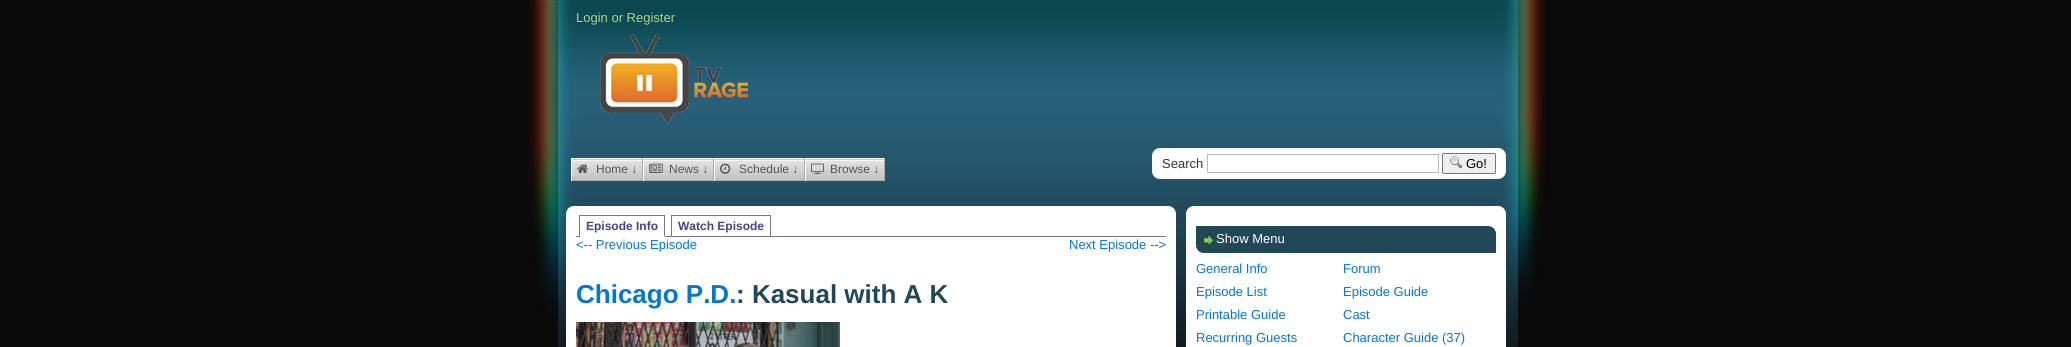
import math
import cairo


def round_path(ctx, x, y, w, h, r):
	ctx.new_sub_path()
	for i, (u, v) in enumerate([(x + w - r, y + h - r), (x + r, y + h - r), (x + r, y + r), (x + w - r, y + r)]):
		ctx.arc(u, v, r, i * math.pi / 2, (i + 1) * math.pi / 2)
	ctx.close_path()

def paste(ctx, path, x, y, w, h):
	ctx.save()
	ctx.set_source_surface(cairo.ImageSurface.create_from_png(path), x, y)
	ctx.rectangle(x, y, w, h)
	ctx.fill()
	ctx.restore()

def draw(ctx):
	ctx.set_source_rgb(0.039, 0.039, 0.039)
	ctx.paint()
	paste(ctx, 'media/1.png', 528, 0, 1019, 347)
	ctx.select_font_face('Liberation Sans')
	ctx.set_font_size(13)
	ctx.set_source_rgb(0.682, 0.835, 0.506)
	ctx.move_to(576, 22)
	ctx.show_text('Login or Register')
	paste(ctx, 'media/2.png', 600, 34, 148, 90)
	paste(ctx, 'media/3.png', 572, 159, 70, 21)
	ctx.set_source_rgb(1, 1, 1)
	ctx.rectangle(571, 158, 314, 1)
	ctx.fill()
	ctx.set_source_rgb(0.667, 0.667, 0.667)
	ctx.rectangle(642, 158, 1, 23)
	ctx.rectangle(571, 180, 72, 1)
	ctx.fill()
	ctx.set_source_rgb(1, 1, 1)
	ctx.rectangle(571, 158, 1, 23)
	ctx.fill()
	paste(ctx, 'media/4.png', 577, 164, 11, 9)
	ctx.set_font_size(12)
	ctx.set_source_rgb(0.333, 0.333, 0.333)
	ctx.move_to(596, 173)
	ctx.show_text('Home ↓')
	paste(ctx, 'media/5.png', 644, 159, 69, 21)
	ctx.set_source_rgb(0.667, 0.667, 0.667)
	ctx.rectangle(713, 158, 1, 23)
	ctx.rectangle(643, 180, 71, 1)
	ctx.fill()
	ctx.set_source_rgb(1, 1, 1)
	ctx.rectangle(643, 158, 1, 23)
	ctx.fill()
	paste(ctx, 'media/6.png', 649, 163, 14, 10)
	ctx.set_source_rgb(0.333, 0.333, 0.333)
	ctx.move_to(669, 173)
	ctx.show_text('News ↓')
	paste(ctx, 'media/7.png', 715, 159, 89, 21)
	ctx.set_source_rgb(0.667, 0.667, 0.667)
	ctx.rectangle(804, 158, 1, 23)
	ctx.rectangle(714, 180, 91, 1)
	ctx.fill()
	ctx.set_source_rgb(1, 1, 1)
	ctx.rectangle(714, 158, 1, 23)
	ctx.fill()
	paste(ctx, 'media/8.png', 720, 163, 11, 11)
	ctx.set_source_rgb(0.333, 0.333, 0.333)
	ctx.move_to(739, 173)
	ctx.show_text('Schedule ↓')
	paste(ctx, 'media/9.png', 806, 159, 78, 21)
	ctx.set_source_rgb(0.667, 0.667, 0.667)
	ctx.rectangle(884, 158, 1, 23)
	ctx.rectangle(805, 180, 80, 1)
	ctx.fill()
	ctx.set_source_rgb(1, 1, 1)
	ctx.rectangle(805, 158, 1, 23)
	ctx.fill()
	paste(ctx, 'media/10.png', 811, 163, 13, 11)
	ctx.set_source_rgb(0.333, 0.333, 0.333)
	ctx.move_to(830, 173)
	ctx.show_text('Browse ↓')
	ctx.set_source_rgb(1, 1, 1)
	round_path(ctx, 1152, 148, 354, 31, 8)
	ctx.fill()
	ctx.set_font_size(13)
	ctx.set_source_rgb(0.2, 0.2, 0.2)
	ctx.move_to(1162, 168)
	ctx.show_text('Search')
	ctx.rectangle(1207.5, 154.5, 231, 18)
	ctx.set_source_rgb(0.733, 0.733, 0.733)
	ctx.set_line_width(1)
	ctx.stroke()
	ctx.set_source_rgb(0.937, 0.937, 0.937)
	round_path(ctx, 1442.5, 153.5, 53, 20, 1.5)
	ctx.fill_preserve()
	ctx.set_source_rgb(0.463, 0.463, 0.463)
	ctx.stroke()
	paste(ctx, 'media/11.png', 1450, 156, 12, 12)
	ctx.set_source_rgb(0, 0, 0)
	ctx.move_to(1466, 168)
	ctx.show_text('Go!')
	ctx.set_source_rgb(1, 1, 1)
	round_path(ctx, 566, 206, 610, 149, 8)
	ctx.fill()
	ctx.set_source_rgb(0.467, 0.467, 0.533)
	ctx.rectangle(576, 236, 590, 1)
	ctx.fill()
	ctx.select_font_face('Liberation Sans', cairo.FONT_SLANT_NORMAL, cairo.FONT_WEIGHT_BOLD)
	ctx.set_font_size(12)
	ctx.set_source_rgb(0.267, 0.267, 0.533)
	ctx.move_to(586, 230)
	ctx.show_text('Episode Info')
	ctx.set_source_rgb(0.467, 0.467, 0.533)
	ctx.rectangle(579, 215, 86, 1)
	ctx.rectangle(664, 215, 1, 22)
	ctx.fill()
	ctx.set_source_rgb(1, 1, 1)
	ctx.rectangle(579, 236, 86, 1)
	ctx.fill()
	ctx.set_source_rgb(0.467, 0.467, 0.533)
	ctx.rectangle(579, 215, 1, 22)
	ctx.fill()
	ctx.set_source_rgb(0.267, 0.267, 0.533)
	ctx.move_to(678, 230)
	ctx.show_text('Watch Episode')
	ctx.set_source_rgb(0.467, 0.467, 0.533)
	ctx.rectangle(671, 215, 100, 1)
	ctx.rectangle(770, 215, 1, 21)
	ctx.rectangle(671, 215, 1, 21)
	ctx.fill()
	ctx.select_font_face('Liberation Sans')
	ctx.set_font_size(13)
	ctx.set_source_rgb(0.016, 0.463, 0.839)
	ctx.move_to(576, 249)
	ctx.show_text('<-- Previous Episode')
	ctx.move_to(1069, 249)
	ctx.show_text('Next Episode -->')
	ctx.select_font_face('Liberation Sans', cairo.FONT_SLANT_NORMAL, cairo.FONT_WEIGHT_BOLD)
	ctx.set_font_size(26)
	ctx.move_to(576, 303)
	ctx.show_text('Chicago P.D.')
	ctx.set_source_rgb(0.129, 0.282, 0.337)
	ctx.move_to(736, 303)
	ctx.show_text(': Kasual with A K')
	paste(ctx, 'media/12.png', 576, 322, 264, 25)
	ctx.set_source_rgb(1, 1, 1)
	round_path(ctx, 1186, 206, 320, 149, 8)
	ctx.fill()
	ctx.set_source_rgb(0.129, 0.282, 0.337)
	ctx.new_path()
	ctx.move_to(1196, 226)
	ctx.line_to(1488, 226)
	ctx.curve_to(1492.5, 226, 1496, 229.5, 1496, 234)
	ctx.line_to(1496, 253)
	ctx.line_to(1204, 253)
	ctx.curve_to(1199.5, 253, 1196, 249.5, 1196, 245)
	ctx.close_path()
	ctx.fill()
	paste(ctx, 'media/13.png', 1204, 236, 10, 9)
	ctx.select_font_face('Liberation Sans')
	ctx.set_font_size(13)
	ctx.set_source_rgb(1, 1, 1)
	ctx.move_to(1216, 243)
	ctx.show_text('Show Menu')
	ctx.set_source_rgb(0.016, 0.463, 0.839)
	for x, y, s in [
		(1196, 273, 'General Info'),
		(1343, 273, 'Forum'),
		(1196, 296, 'Episode List'),
		(1343, 296, 'Episode Guide'),
		(1196, 319, 'Printable Guide'),
		(1343, 319, 'Cast'),
		(1196, 342, 'Recurring Guests'),
		(1343, 342, 'Character Guide (37)'),
	]:
		ctx.move_to(x, y)
		ctx.show_text(s)


surface = cairo.ImageSurface(cairo.FORMAT_RGB24, 2071, 347)
ctx = cairo.Context(surface)
options = cairo.FontOptions()
options.set_hint_metrics(cairo.HINT_METRICS_OFF)
options.set_hint_style(cairo.HINT_STYLE_NONE)
ctx.set_font_options(options)
ctx.set_miter_limit(4)
draw(ctx)
surface.write_to_png('image.png')
